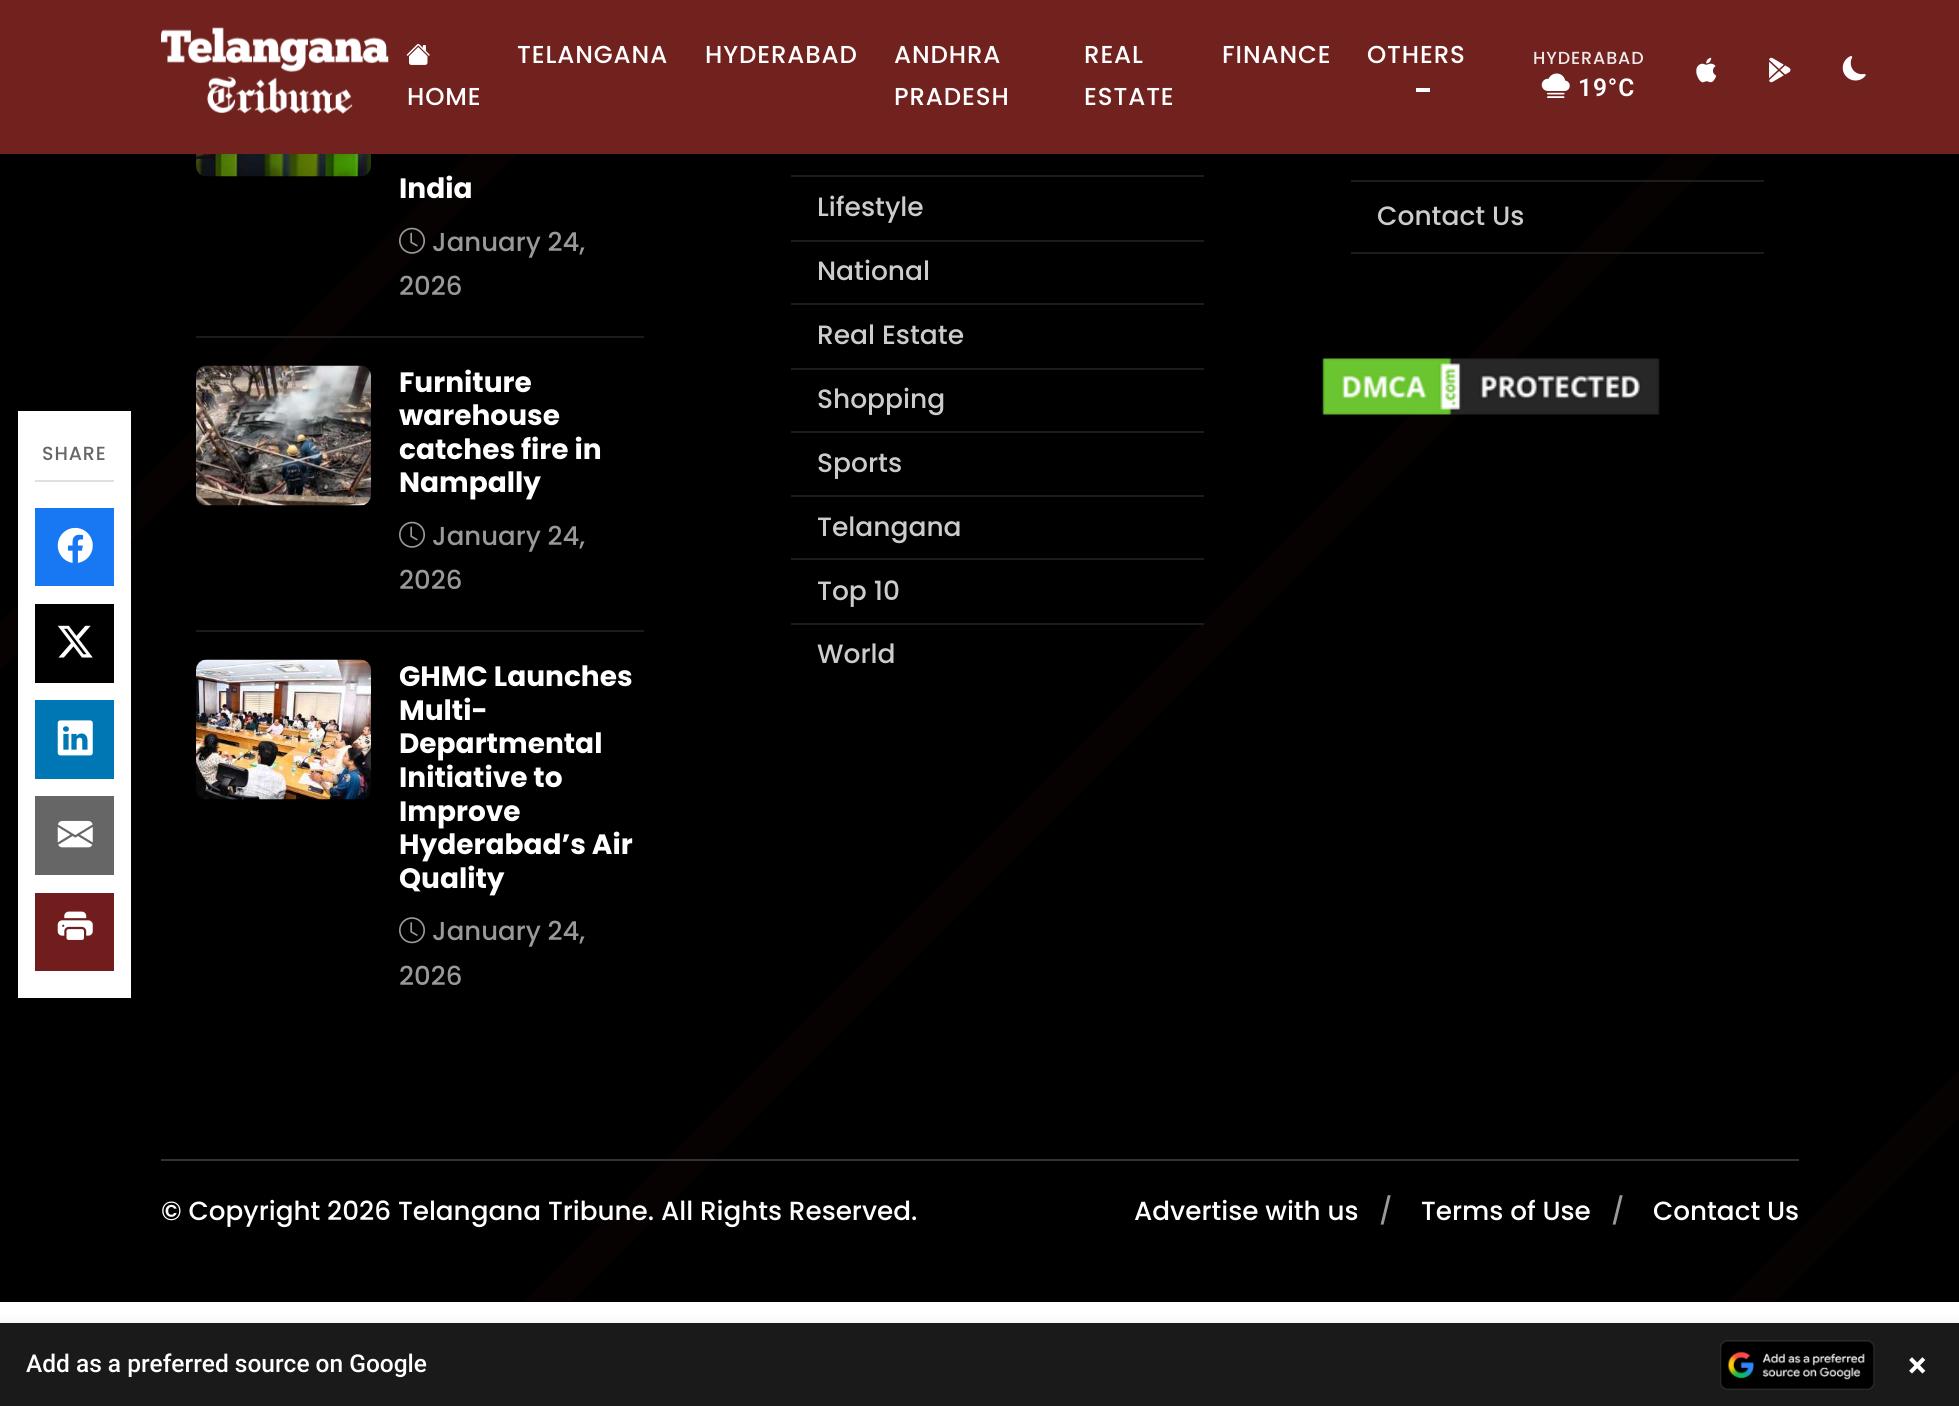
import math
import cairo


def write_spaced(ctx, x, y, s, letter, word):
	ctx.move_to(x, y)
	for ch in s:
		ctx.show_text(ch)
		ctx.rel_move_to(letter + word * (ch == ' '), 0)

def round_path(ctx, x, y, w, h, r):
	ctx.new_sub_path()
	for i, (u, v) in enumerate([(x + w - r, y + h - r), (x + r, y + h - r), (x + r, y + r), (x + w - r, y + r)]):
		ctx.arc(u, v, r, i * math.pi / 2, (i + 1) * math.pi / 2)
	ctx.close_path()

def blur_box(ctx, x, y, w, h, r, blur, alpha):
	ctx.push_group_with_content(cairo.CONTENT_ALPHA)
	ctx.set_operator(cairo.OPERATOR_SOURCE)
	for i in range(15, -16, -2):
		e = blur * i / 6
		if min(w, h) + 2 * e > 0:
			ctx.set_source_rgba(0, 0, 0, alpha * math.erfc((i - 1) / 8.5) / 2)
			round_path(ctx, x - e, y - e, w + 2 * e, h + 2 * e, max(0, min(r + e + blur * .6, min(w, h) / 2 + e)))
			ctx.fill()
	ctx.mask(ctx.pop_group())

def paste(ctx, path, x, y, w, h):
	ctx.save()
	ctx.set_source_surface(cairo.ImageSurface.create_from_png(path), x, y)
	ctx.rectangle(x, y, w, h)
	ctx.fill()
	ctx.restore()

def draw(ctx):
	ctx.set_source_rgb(1, 1, 1)
	ctx.paint()
	gradient = cairo.LinearGradient(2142, 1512, -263, -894)
	gradient.add_color_stop_rgba(0, 0, 0, 0, 1)
	gradient.add_color_stop_rgba(0.04, 0, 0, 0, 1)
	gradient.add_color_stop_rgba(0.04, 0.027, 0.008, 0.008, 1)
	gradient.add_color_stop_rgba(0.04, 0, 0, 0, 1)
	gradient.add_color_stop_rgba(0.08, 0, 0, 0, 1)
	gradient.add_color_stop_rgba(0.08, 0.016, 0.016, 0.016, 1)
	gradient.add_color_stop_rgba(0.08, 0, 0, 0, 1)
	gradient.add_color_stop_rgba(0.12, 0, 0, 0, 1)
	gradient.add_color_stop_rgba(0.12, 0.027, 0.008, 0.008, 1)
	gradient.add_color_stop_rgba(0.13, 0.027, 0.008, 0.008, 1)
	gradient.add_color_stop_rgba(0.13, 0, 0, 0, 1)
	gradient.add_color_stop_rgba(0.17, 0, 0, 0, 1)
	gradient.add_color_stop_rgba(0.17, 0.016, 0.016, 0.016, 1)
	gradient.add_color_stop_rgba(0.17, 0, 0, 0, 1)
	gradient.add_color_stop_rgba(0.21, 0, 0, 0, 1)
	gradient.add_color_stop_rgba(0.21, 0.027, 0.008, 0.008, 1)
	gradient.add_color_stop_rgba(0.21, 0, 0, 0, 1)
	gradient.add_color_stop_rgba(0.25, 0, 0, 0, 1)
	gradient.add_color_stop_rgba(0.25, 0.016, 0.016, 0.016, 1)
	gradient.add_color_stop_rgba(0.25, 0, 0, 0, 1)
	gradient.add_color_stop_rgba(0.29, 0, 0, 0, 1)
	gradient.add_color_stop_rgba(0.29, 0.027, 0.008, 0.008, 1)
	gradient.add_color_stop_rgba(0.29, 0, 0, 0, 1)
	gradient.add_color_stop_rgba(0.33, 0, 0, 0, 1)
	gradient.add_color_stop_rgba(0.33, 0.016, 0.016, 0.016, 1)
	gradient.add_color_stop_rgba(0.33, 0, 0, 0, 1)
	gradient.add_color_stop_rgba(0.37, 0, 0, 0, 1)
	gradient.add_color_stop_rgba(0.37, 0.027, 0.008, 0.008, 1)
	gradient.add_color_stop_rgba(0.38, 0.027, 0.008, 0.008, 1)
	gradient.add_color_stop_rgba(0.38, 0, 0, 0, 1)
	gradient.add_color_stop_rgba(0.42, 0, 0, 0, 1)
	gradient.add_color_stop_rgba(0.42, 0.016, 0.016, 0.016, 1)
	gradient.add_color_stop_rgba(0.42, 0, 0, 0, 1)
	gradient.add_color_stop_rgba(0.46, 0, 0, 0, 1)
	gradient.add_color_stop_rgba(0.46, 0.027, 0.008, 0.008, 1)
	gradient.add_color_stop_rgba(0.46, 0, 0, 0, 1)
	gradient.add_color_stop_rgba(0.5, 0, 0, 0, 1)
	gradient.add_color_stop_rgba(0.5, 0.016, 0.016, 0.016, 1)
	gradient.add_color_stop_rgba(0.5, 0, 0, 0, 1)
	gradient.add_color_stop_rgba(0.54, 0, 0, 0, 1)
	gradient.add_color_stop_rgba(0.54, 0.027, 0.008, 0.008, 1)
	gradient.add_color_stop_rgba(0.54, 0, 0, 0, 1)
	gradient.add_color_stop_rgba(0.58, 0, 0, 0, 1)
	gradient.add_color_stop_rgba(0.58, 0.016, 0.016, 0.016, 1)
	gradient.add_color_stop_rgba(0.58, 0, 0, 0, 1)
	gradient.add_color_stop_rgba(0.62, 0, 0, 0, 1)
	gradient.add_color_stop_rgba(0.62, 0.027, 0.008, 0.008, 1)
	gradient.add_color_stop_rgba(0.63, 0.027, 0.008, 0.008, 1)
	gradient.add_color_stop_rgba(0.63, 0, 0, 0, 1)
	gradient.add_color_stop_rgba(0.67, 0, 0, 0, 1)
	gradient.add_color_stop_rgba(0.67, 0.016, 0.016, 0.016, 1)
	gradient.add_color_stop_rgba(0.67, 0, 0, 0, 1)
	gradient.add_color_stop_rgba(0.71, 0, 0, 0, 1)
	gradient.add_color_stop_rgba(0.71, 0.027, 0.008, 0.008, 1)
	gradient.add_color_stop_rgba(0.71, 0, 0, 0, 1)
	gradient.add_color_stop_rgba(0.75, 0, 0, 0, 1)
	gradient.add_color_stop_rgba(0.75, 0.016, 0.016, 0.016, 1)
	gradient.add_color_stop_rgba(0.75, 0, 0, 0, 1)
	gradient.add_color_stop_rgba(0.79, 0, 0, 0, 1)
	gradient.add_color_stop_rgba(0.79, 0.027, 0.008, 0.008, 1)
	gradient.add_color_stop_rgba(0.79, 0, 0, 0, 1)
	gradient.add_color_stop_rgba(0.83, 0, 0, 0, 1)
	gradient.add_color_stop_rgba(0.83, 0.016, 0.016, 0.016, 1)
	gradient.add_color_stop_rgba(0.83, 0, 0, 0, 1)
	gradient.add_color_stop_rgba(0.87, 0, 0, 0, 1)
	gradient.add_color_stop_rgba(0.87, 0.027, 0.008, 0.008, 1)
	gradient.add_color_stop_rgba(0.88, 0.027, 0.008, 0.008, 1)
	gradient.add_color_stop_rgba(0.88, 0, 0, 0, 1)
	gradient.add_color_stop_rgba(0.92, 0, 0, 0, 1)
	gradient.add_color_stop_rgba(0.92, 0.016, 0.016, 0.016, 1)
	gradient.add_color_stop_rgba(0.92, 0, 0, 0, 1)
	gradient.add_color_stop_rgba(0.96, 0, 0, 0, 1)
	gradient.add_color_stop_rgba(0.96, 0.027, 0.008, 0.008, 1)
	gradient.add_color_stop_rgba(0.96, 0, 0, 0, 1)
	gradient.add_color_stop_rgba(1, 0, 0, 0, 1)
	gradient.add_color_stop_rgba(1, 0.016, 0.016, 0.016, 1)
	ctx.set_source(gradient)
	ctx.rectangle(0, 154, 1959, 1148)
	ctx.fill()
	paste(ctx, 'media/12.png', 196, 154, 175, 23)
	ctx.set_source_rgb(0, 0, 0)
	blur_box(ctx, 0, 4, 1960, 154, 0, 3.5, 0.07)
	ctx.set_source_rgb(0.443, 0.133, 0.122)
	ctx.rectangle(0, 0, 1959, 154)
	ctx.fill()
	paste(ctx, 'media/1.png', 161, 27, 228, 87)
	ctx.select_font_face('Poppins Medium')
	ctx.set_font_size(24.5)
	ctx.set_source_rgb(1, 1, 1)
	for x, y, s in [
		(517, 63, 'TELANGANA'),
		(705, 63, 'HYDERABAD'),
		(894, 63, 'ANDHRA'),
		(894, 105, 'PRADESH'),
		(1084, 63, 'REAL'),
		(1084, 105, 'ESTATE'),
		(1222, 63, 'FINANCE'),
		(1367, 63, 'OTHERS'),
	]:
		write_spaced(ctx, x, y, s, 0.9, 0)
	ctx.rectangle(1416, 88, 14, 4)
	ctx.fill()
	paste(ctx, 'media/2.png', 406, 43, 24, 22)
	write_spaced(ctx, 407, 105, 'HOME', 0.9, 0)
	ctx.set_font_size(17.5)
	ctx.set_source_rgb(0.945, 0.914, 0.914)
	write_spaced(ctx, 1533, 64, 'HYDERABAD', 0.9, 0)
	paste(ctx, 'media/3.png', 1541, 73, 29, 25)
	ctx.select_font_face('Roboto SemiBold')
	ctx.set_font_size(24.5)
	ctx.set_source_rgb(1, 1, 1)
	write_spaced(ctx, 1578, 96, '19°C', 0.9, 0)
	paste(ctx, 'media/4.png', 1696, 57, 21, 26)
	paste(ctx, 'media/5.png', 1769, 57, 22, 26)
	paste(ctx, 'media/6.png', 1842, 56, 24, 25)
	ctx.rectangle(18, 411, 113, 587)
	ctx.fill()
	ctx.set_source_rgb(0.878, 0.878, 0.878)
	ctx.rectangle(35, 480, 79, 2)
	ctx.fill()
	ctx.select_font_face('Poppins Medium')
	ctx.set_font_size(19)
	ctx.set_source_rgb(0.4, 0.4, 0.4)
	write_spaced(ctx, 42, 460, 'SHARE', 0.9, 0)
	ctx.set_source_rgb(0.094, 0.467, 0.949)
	ctx.rectangle(35, 508, 79, 78)
	ctx.fill()
	paste(ctx, 'media/7.png', 57, 527, 36, 36)
	ctx.set_source_rgb(0, 0, 0)
	ctx.rectangle(35, 604, 79, 79)
	ctx.fill()
	paste(ctx, 'media/8.png', 57, 625, 36, 33)
	ctx.set_source_rgb(0, 0.467, 0.71)
	ctx.rectangle(35, 700, 79, 79)
	ctx.fill()
	paste(ctx, 'media/9.png', 57, 720, 36, 36)
	ctx.set_source_rgb(0.4, 0.4, 0.4)
	ctx.rectangle(35, 796, 79, 79)
	ctx.fill()
	paste(ctx, 'media/10.png', 57, 820, 36, 28)
	ctx.set_source_rgb(0.447, 0.114, 0.114)
	ctx.rectangle(35, 893, 79, 78)
	ctx.fill()
	paste(ctx, 'media/11.png', 57, 911, 36, 29)
	ctx.set_source_rgb(0.11, 0.11, 0.11)
	ctx.rectangle(196, 336, 448, 2)
	ctx.fill()
	ctx.select_font_face('Poppins', cairo.FONT_SLANT_NORMAL, cairo.FONT_WEIGHT_BOLD)
	ctx.set_font_size(28)
	ctx.set_source_rgb(1, 1, 1)
	ctx.move_to(399, 198)
	ctx.show_text('India')
	paste(ctx, 'media/13.png', 399, 227, 26, 27)
	ctx.select_font_face('Poppins Medium')
	ctx.set_font_size(26)
	ctx.set_source_rgb(0.6, 0.6, 0.6)
	ctx.move_to(432, 251)
	ctx.show_text('January 24,')
	ctx.move_to(399, 295)
	ctx.show_text('2026')
	ctx.set_source_rgb(0.11, 0.11, 0.11)
	ctx.rectangle(196, 630, 448, 2)
	ctx.fill()
	paste(ctx, 'media/14.png', 196, 365, 175, 141)
	ctx.select_font_face('Poppins', cairo.FONT_SLANT_NORMAL, cairo.FONT_WEIGHT_BOLD)
	ctx.set_font_size(28)
	ctx.set_source_rgb(1, 1, 1)
	for x, y, s in [
		(399, 392, 'Furniture'),
		(399, 425, 'warehouse'),
		(399, 459, 'catches fire in'),
		(399, 492, 'Nampally'),
	]:
		ctx.move_to(x, y)
		ctx.show_text(s)
	paste(ctx, 'media/15.png', 399, 521, 26, 27)
	ctx.select_font_face('Poppins Medium')
	ctx.set_font_size(26)
	ctx.set_source_rgb(0.6, 0.6, 0.6)
	ctx.move_to(432, 545)
	ctx.show_text('January 24,')
	ctx.move_to(399, 589)
	ctx.show_text('2026')
	paste(ctx, 'media/16.png', 196, 659, 175, 141)
	ctx.select_font_face('Poppins', cairo.FONT_SLANT_NORMAL, cairo.FONT_WEIGHT_BOLD)
	ctx.set_font_size(28)
	ctx.set_source_rgb(1, 1, 1)
	for x, y, s in [
		(399, 686, 'GHMC Launches'),
		(399, 720, 'Multi-'),
		(399, 753, 'Departmental'),
		(399, 787, 'Initiative to'),
		(399, 821, 'Improve'),
		(399, 854, 'Hyderabad’s Air'),
		(399, 888, 'Quality'),
	]:
		ctx.move_to(x, y)
		ctx.show_text(s)
	paste(ctx, 'media/17.png', 399, 917, 26, 27)
	ctx.select_font_face('Poppins Medium')
	ctx.set_font_size(26)
	ctx.set_source_rgb(0.6, 0.6, 0.6)
	ctx.move_to(432, 940)
	ctx.show_text('January 24,')
	ctx.move_to(399, 985)
	ctx.show_text('2026')
	ctx.set_source_rgb(0.11, 0.11, 0.11)
	ctx.rectangle(791, 175, 413, 2)
	ctx.fill()
	ctx.rectangle(791, 240, 413, 2)
	ctx.fill()
	ctx.set_font_size(26.5)
	ctx.set_source_rgb(0.8, 0.8, 0.8)
	ctx.move_to(817, 216)
	ctx.show_text('Lifestyle')
	ctx.set_source_rgb(0.11, 0.11, 0.11)
	ctx.rectangle(791, 303, 413, 2)
	ctx.fill()
	ctx.set_source_rgb(0.8, 0.8, 0.8)
	ctx.move_to(817, 280)
	ctx.show_text('National')
	ctx.set_source_rgb(0.11, 0.11, 0.11)
	ctx.rectangle(791, 368, 413, 2)
	ctx.fill()
	ctx.set_source_rgb(0.8, 0.8, 0.8)
	ctx.move_to(817, 344)
	ctx.show_text('Real Estate')
	ctx.set_source_rgb(0.11, 0.11, 0.11)
	ctx.rectangle(791, 431, 413, 2)
	ctx.fill()
	ctx.set_source_rgb(0.8, 0.8, 0.8)
	ctx.move_to(817, 408)
	ctx.show_text('Shopping')
	ctx.set_source_rgb(0.11, 0.11, 0.11)
	ctx.rectangle(791, 495, 413, 2)
	ctx.fill()
	ctx.set_source_rgb(0.8, 0.8, 0.8)
	ctx.move_to(817, 472)
	ctx.show_text('Sports')
	ctx.set_source_rgb(0.11, 0.11, 0.11)
	ctx.rectangle(791, 558, 413, 2)
	ctx.fill()
	ctx.set_source_rgb(0.8, 0.8, 0.8)
	ctx.move_to(817, 536)
	ctx.show_text('Telangana')
	ctx.set_source_rgb(0.11, 0.11, 0.11)
	ctx.rectangle(791, 623, 413, 2)
	ctx.fill()
	ctx.set_source_rgb(0.8, 0.8, 0.8)
	ctx.move_to(817, 600)
	ctx.show_text('Top 10')
	ctx.move_to(817, 663)
	ctx.show_text('World')
	ctx.set_source_rgb(0.11, 0.11, 0.11)
	ctx.rectangle(1351, 180, 413, 2)
	ctx.fill()
	ctx.rectangle(1351, 252, 413, 2)
	ctx.fill()
	ctx.set_source_rgb(0.8, 0.8, 0.8)
	ctx.move_to(1377, 225)
	ctx.show_text('Contact Us')
	paste(ctx, 'media/18.png', 1322, 358, 338, 57)
	ctx.set_source_rgb(0.2, 0.2, 0.2)
	ctx.rectangle(161, 1159, 1638, 2)
	ctx.fill()
	ctx.set_font_size(26.25)
	ctx.set_source_rgb(1, 1, 1)
	ctx.move_to(161, 1220)
	ctx.show_text('© Copyright 2026 Telangana Tribune. All Rights Reserved.')
	ctx.move_to(1134, 1220)
	ctx.show_text('Advertise with us')
	ctx.set_source_rgb(0.6, 0.6, 0.6)
	ctx.move_to(1379, 1220)
	ctx.show_text('/')
	ctx.set_source_rgb(1, 1, 1)
	ctx.move_to(1421, 1220)
	ctx.show_text('Terms of Use')
	ctx.set_source_rgb(0.6, 0.6, 0.6)
	ctx.move_to(1611, 1220)
	ctx.show_text('/')
	ctx.set_source_rgb(1, 1, 1)
	ctx.move_to(1653, 1220)
	ctx.show_text('Contact Us')
	ctx.set_source_rgb(0, 0, 0)
	blur_box(ctx, 0, 1327, 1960, 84, 0, 7, 0.15)
	ctx.set_source_rgb(0.102, 0.102, 0.102)
	ctx.rectangle(0, 1323, 1959, 83)
	ctx.fill()
	ctx.select_font_face('Roboto Medium')
	ctx.set_font_size(24.5)
	ctx.set_source_rgb(1, 1, 1)
	ctx.move_to(26, 1372)
	ctx.show_text('Add as a preferred source on Google')
	paste(ctx, 'media/19.png', 1720, 1340, 155, 50)
	ctx.select_font_face('Roboto', cairo.FONT_SLANT_NORMAL, cairo.FONT_WEIGHT_BOLD)
	ctx.set_font_size(35)
	ctx.move_to(1908, 1377)
	ctx.show_text('×')


surface = cairo.ImageSurface(cairo.FORMAT_RGB24, 1959, 1406)
ctx = cairo.Context(surface)
options = cairo.FontOptions()
options.set_hint_metrics(cairo.HINT_METRICS_OFF)
options.set_hint_style(cairo.HINT_STYLE_NONE)
ctx.set_font_options(options)
ctx.set_miter_limit(4)
draw(ctx)
surface.write_to_png('image.png')
